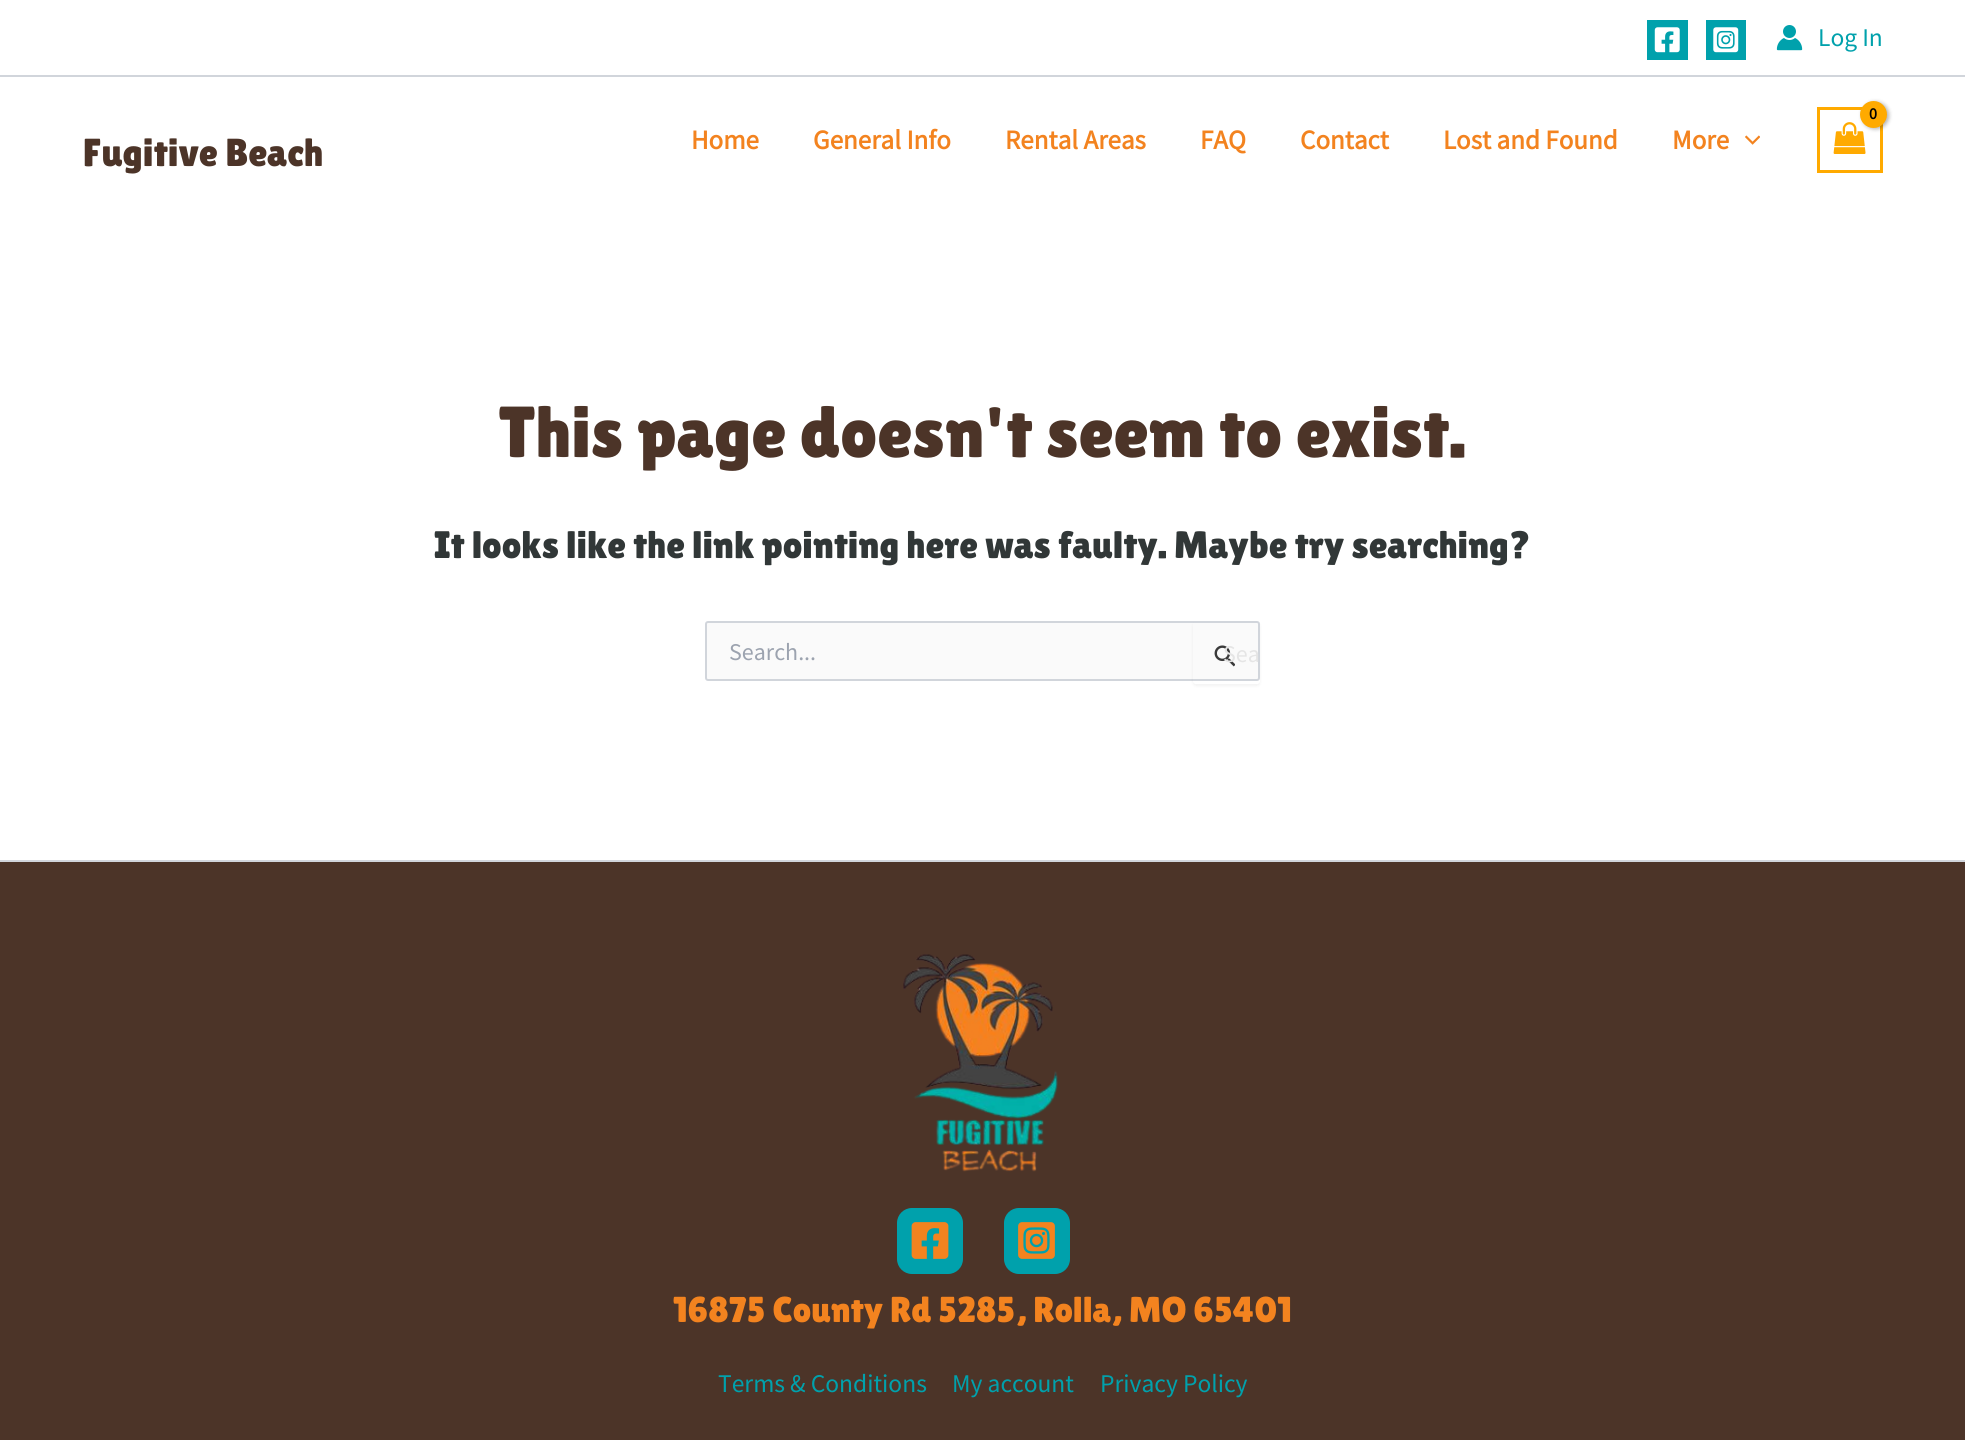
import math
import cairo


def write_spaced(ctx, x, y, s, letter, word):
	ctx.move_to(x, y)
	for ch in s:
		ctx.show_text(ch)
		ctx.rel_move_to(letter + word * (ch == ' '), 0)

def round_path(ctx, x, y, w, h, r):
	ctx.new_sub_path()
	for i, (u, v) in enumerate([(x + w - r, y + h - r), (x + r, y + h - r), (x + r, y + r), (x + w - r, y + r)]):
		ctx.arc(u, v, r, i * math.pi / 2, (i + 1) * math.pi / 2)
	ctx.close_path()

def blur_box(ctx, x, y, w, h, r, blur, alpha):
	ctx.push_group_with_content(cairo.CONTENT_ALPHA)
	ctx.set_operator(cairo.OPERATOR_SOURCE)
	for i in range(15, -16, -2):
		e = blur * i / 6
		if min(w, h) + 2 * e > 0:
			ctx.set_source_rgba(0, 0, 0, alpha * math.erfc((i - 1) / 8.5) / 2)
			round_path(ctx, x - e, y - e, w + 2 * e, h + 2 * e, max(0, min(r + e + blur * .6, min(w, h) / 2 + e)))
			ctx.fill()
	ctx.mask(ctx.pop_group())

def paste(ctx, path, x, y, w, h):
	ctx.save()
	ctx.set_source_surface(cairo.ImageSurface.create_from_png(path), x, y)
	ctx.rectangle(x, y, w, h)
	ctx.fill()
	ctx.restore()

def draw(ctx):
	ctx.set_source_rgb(1, 1, 1)
	ctx.paint()
	ctx.set_source_rgb(0.82, 0.835, 0.859)
	ctx.rectangle(0, 75, 1965, 2)
	ctx.fill()
	ctx.set_source_rgb(0, 0.631, 0.675)
	ctx.rectangle(1647, 20, 41, 40)
	ctx.fill()
	paste(ctx, 'media/1.png', 1654, 27, 26, 26)
	ctx.rectangle(1706, 20, 40, 40)
	ctx.fill()
	paste(ctx, 'media/2.png', 1713, 27, 26, 26)
	paste(ctx, 'media/3.png', 1776, 25, 27, 26)
	ctx.select_font_face('Source Sans Pro')
	ctx.set_font_size(25.5)
	ctx.move_to(1818, 46)
	ctx.show_text('Log In')
	ctx.select_font_face('Lilita One')
	ctx.set_font_size(39)
	ctx.set_source_rgb(0.298, 0.204, 0.157)
	ctx.move_to(83, 166)
	ctx.show_text('Fugitive Beach')
	ctx.rectangle(1818.5, 108.5, 63, 63)
	ctx.set_source_rgb(1, 0.667, 0)
	ctx.set_line_width(3)
	ctx.stroke()
	paste(ctx, 'media/4.png', 1833, 122, 33, 32)
	ctx.set_source_rgb(0, 0, 0)
	blur_box(ctx, 1862, 102, 27, 27, 13.5, 2, 0.3)
	ctx.set_source_rgb(1, 0.667, 0)
	ctx.arc(1873.5, 114.5, 13.5, 0, 2 * math.pi)
	ctx.fill()
	ctx.select_font_face('Source Sans Pro', cairo.FONT_SLANT_NORMAL, cairo.FONT_WEIGHT_BOLD)
	ctx.set_font_size(16)
	ctx.set_source_rgb(0, 0, 0)
	write_spaced(ctx, 1869, 119, '0', -1, 0)
	ctx.set_font_size(27)
	ctx.set_source_rgb(0.953, 0.514, 0.122)
	for x, y, s in [
		(691, 149, 'Home'),
		(813, 149, 'General Info'),
		(1005, 149, 'Rental Areas'),
		(1200, 149, 'FAQ'),
		(1300, 149, 'Contact'),
		(1443, 149, 'Lost and Found'),
		(1672, 149, 'More'),
	]:
		ctx.move_to(x, y)
		ctx.show_text(s)
	paste(ctx, 'media/5.png', 1745, 135, 15, 10)
	ctx.select_font_face('Lilita One')
	ctx.set_font_size(72)
	ctx.set_source_rgb(0.298, 0.204, 0.157)
	ctx.move_to(499, 457)
	ctx.show_text('This page doesn\'t seem to exist.')
	ctx.set_font_size(38.25)
	ctx.set_source_rgb(0.192, 0.216, 0.216)
	ctx.move_to(434, 558)
	ctx.show_text('It looks like the link pointing here was faulty. Maybe try searching?')
	ctx.set_source_rgb(0.98, 0.98, 0.98)
	round_path(ctx, 706, 622, 553, 58, 2)
	ctx.fill_preserve()
	ctx.set_source_rgb(0.82, 0.835, 0.859)
	ctx.set_line_width(2)
	ctx.stroke()
	ctx.select_font_face('Source Sans Pro')
	ctx.set_font_size(24)
	ctx.set_source_rgb(0.612, 0.639, 0.686)
	ctx.move_to(729, 660)
	ctx.show_text('Search...')
	paste(ctx, 'media/6.png', 1214, 645, 21, 22)
	ctx.save()
	ctx.set_fill_rule(cairo.FILL_RULE_EVEN_ODD)
	ctx.new_path()
	ctx.move_to(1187, 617)
	ctx.line_to(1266, 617)
	ctx.line_to(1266, 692)
	ctx.line_to(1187, 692)
	ctx.close_path()
	ctx.move_to(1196, 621)
	ctx.line_to(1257, 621)
	ctx.curve_to(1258.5, 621, 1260, 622.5, 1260, 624)
	ctx.line_to(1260, 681)
	ctx.curve_to(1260, 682.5, 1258.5, 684, 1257, 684)
	ctx.line_to(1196, 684)
	ctx.curve_to(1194.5, 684, 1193, 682.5, 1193, 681)
	ctx.line_to(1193, 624)
	ctx.curve_to(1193, 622.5, 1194.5, 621, 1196, 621)
	ctx.close_path()
	ctx.clip()
	ctx.set_source_rgb(0, 0, 0)
	blur_box(ctx, 1193, 623, 67, 63, 3, 1.5, 0.05)
	ctx.restore()
	ctx.set_source_rgb(0.898, 0.898, 0.898)
	ctx.move_to(1223, 662)
	ctx.show_text('Sea')
	ctx.set_source_rgb(0.298, 0.204, 0.157)
	ctx.rectangle(0, 862, 1965, 578)
	ctx.fill()
	ctx.set_source_rgb(0.82, 0.835, 0.859)
	ctx.rectangle(0, 860, 1965, 2)
	ctx.fill()
	paste(ctx, 'media/7.png', 903, 954, 155, 218)
	ctx.set_source_rgb(0, 0.631, 0.675)
	round_path(ctx, 897, 1208, 66, 66, 15)
	ctx.fill()
	paste(ctx, 'media/8.png', 911, 1222, 38, 37)
	round_path(ctx, 1004, 1208, 66, 66, 15)
	ctx.fill()
	paste(ctx, 'media/9.png', 1018, 1222, 37, 37)
	ctx.select_font_face('Lilita One')
	ctx.set_font_size(36)
	ctx.set_source_rgb(0.953, 0.514, 0.122)
	ctx.move_to(673, 1322)
	ctx.show_text('16875 County Rd 5285, Rolla, MO 65401')
	ctx.select_font_face('Source Sans Pro')
	ctx.set_font_size(25.5)
	ctx.set_source_rgb(0, 0.631, 0.675)
	for x, y, s in [
		(718, 1392, 'Terms & Conditions'),
		(952, 1392, 'My account'),
		(1100, 1392, 'Privacy Policy'),
	]:
		ctx.move_to(x, y)
		ctx.show_text(s)


surface = cairo.ImageSurface(cairo.FORMAT_RGB24, 1965, 1440)
ctx = cairo.Context(surface)
options = cairo.FontOptions()
options.set_hint_metrics(cairo.HINT_METRICS_OFF)
options.set_hint_style(cairo.HINT_STYLE_NONE)
ctx.set_font_options(options)
ctx.set_miter_limit(4)
draw(ctx)
surface.write_to_png('image.png')
